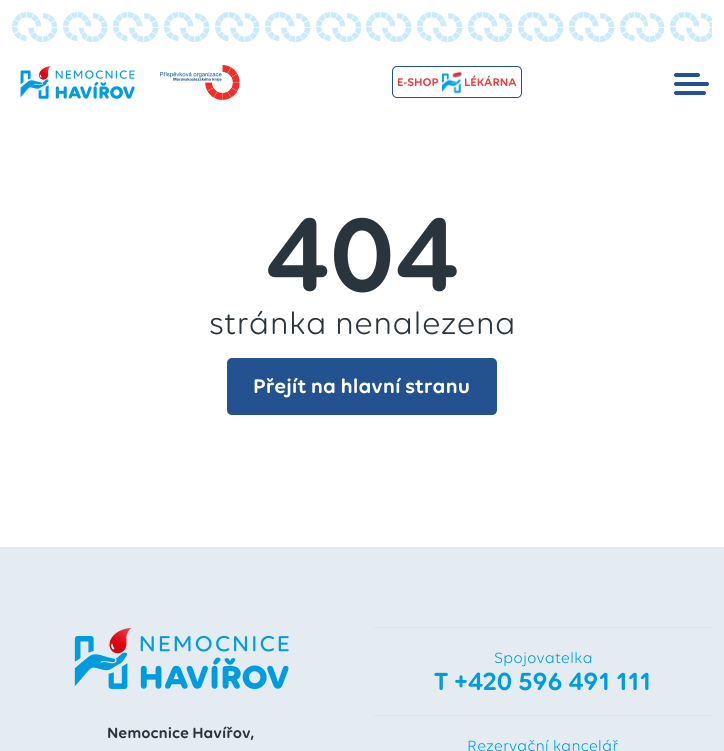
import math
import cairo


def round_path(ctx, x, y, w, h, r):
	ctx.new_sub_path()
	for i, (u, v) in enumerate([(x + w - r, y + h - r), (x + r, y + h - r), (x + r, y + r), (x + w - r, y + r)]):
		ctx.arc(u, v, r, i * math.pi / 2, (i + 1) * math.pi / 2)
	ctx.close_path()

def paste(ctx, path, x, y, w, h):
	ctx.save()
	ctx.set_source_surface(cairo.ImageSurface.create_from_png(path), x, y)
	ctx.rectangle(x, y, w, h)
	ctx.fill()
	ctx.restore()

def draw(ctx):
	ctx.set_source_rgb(1, 1, 1)
	ctx.paint()
	paste(ctx, 'media/1.png', 12, 12, 700, 30)
	paste(ctx, 'media/2.png', 20, 66, 115, 33)
	paste(ctx, 'media/3.png', 160, 65, 80, 35)
	round_path(ctx, 392.5, 66.5, 129, 31, 4.5)
	ctx.set_source_rgb(0.141, 0.318, 0.565)
	ctx.set_line_width(1)
	ctx.stroke()
	ctx.select_font_face('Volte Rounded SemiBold')
	ctx.set_font_size(12)
	ctx.set_source_rgb(0.906, 0.251, 0.255)
	ctx.move_to(397, 86)
	ctx.show_text('E-SHOP')
	paste(ctx, 'media/4.png', 441, 71, 22, 23)
	ctx.move_to(464, 86)
	ctx.show_text('LÉKÁRNA')
	ctx.set_source_rgb(0.141, 0.318, 0.565)
	round_path(ctx, 674, 73, 26, 4, 2)
	ctx.fill()
	round_path(ctx, 674, 82, 35, 4, 2)
	ctx.fill()
	round_path(ctx, 674, 91, 32, 4, 2)
	ctx.fill()
	ctx.set_font_size(112)
	ctx.set_source_rgb(0.165, 0.204, 0.239)
	ctx.move_to(266, 291)
	ctx.show_text('404')
	ctx.select_font_face('Volte Rounded')
	ctx.set_font_size(32.9)
	ctx.move_to(209, 334)
	ctx.show_text('stránka nenalezena')
	ctx.set_source_rgb(0.141, 0.318, 0.565)
	round_path(ctx, 227, 358, 270, 57, 5)
	ctx.fill()
	ctx.select_font_face('Volte Rounded SemiBold')
	ctx.set_font_size(21.25)
	ctx.set_source_rgb(1, 1, 1)
	ctx.move_to(253, 393)
	ctx.show_text('Přejít na hlavní stranu')
	ctx.set_source_rgb(0.894, 0.925, 0.949)
	ctx.rectangle(0, 547, 724, 204)
	ctx.fill()
	paste(ctx, 'media/5.png', 74, 627, 215, 63)
	ctx.set_font_size(16)
	ctx.set_source_rgb(0.165, 0.204, 0.239)
	ctx.move_to(107, 738)
	ctx.show_text('Nemocnice Havířov,')
	ctx.set_source_rgb(0.855, 0.894, 0.929)
	ctx.rectangle(374, 627, 338, 1)
	ctx.fill()
	ctx.select_font_face('Volte Rounded')
	ctx.set_source_rgb(0, 0.612, 0.867)
	ctx.move_to(494, 663)
	ctx.show_text('Spojovatelka')
	ctx.select_font_face('Volte Rounded SemiBold')
	ctx.set_font_size(26.75)
	ctx.move_to(434, 690)
	ctx.show_text('T +420 596 491 111')
	ctx.set_source_rgb(0.855, 0.894, 0.929)
	ctx.rectangle(374, 715, 338, 1)
	ctx.fill()
	ctx.select_font_face('Volte Rounded')
	ctx.set_font_size(16)
	ctx.set_source_rgb(0, 0.612, 0.867)
	ctx.move_to(467, 751)
	ctx.show_text('Rezervační kancelář')


surface = cairo.ImageSurface(cairo.FORMAT_RGB24, 724, 751)
ctx = cairo.Context(surface)
options = cairo.FontOptions()
options.set_hint_metrics(cairo.HINT_METRICS_OFF)
options.set_hint_style(cairo.HINT_STYLE_NONE)
ctx.set_font_options(options)
ctx.set_miter_limit(4)
draw(ctx)
surface.write_to_png('image.png')
